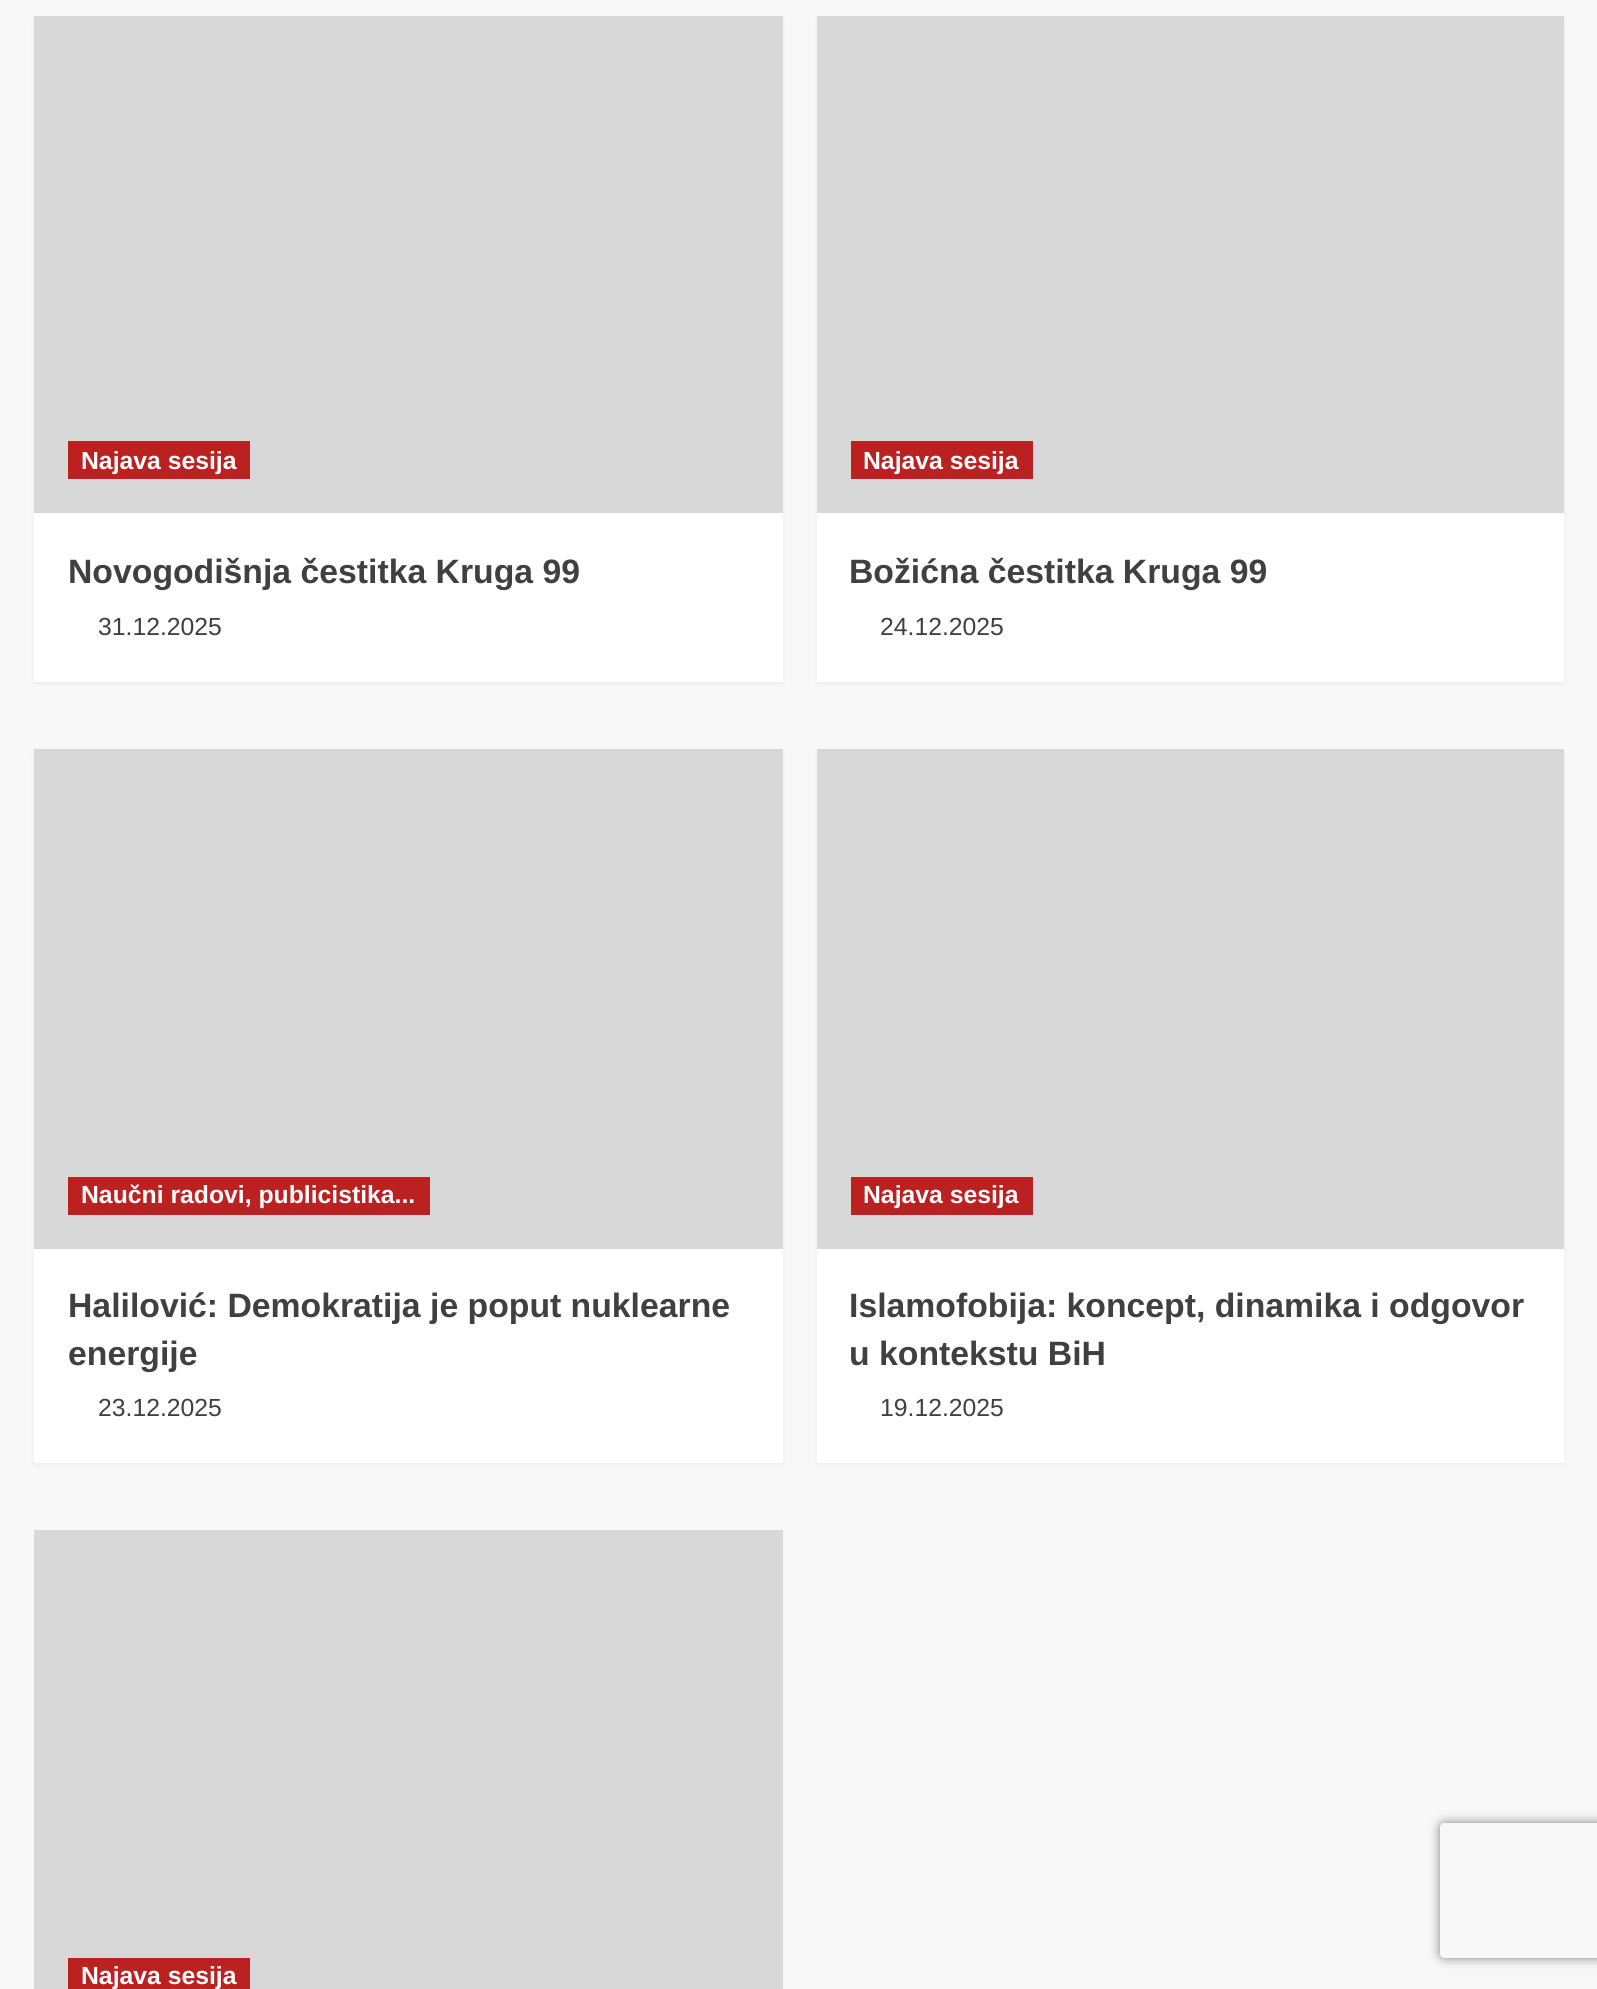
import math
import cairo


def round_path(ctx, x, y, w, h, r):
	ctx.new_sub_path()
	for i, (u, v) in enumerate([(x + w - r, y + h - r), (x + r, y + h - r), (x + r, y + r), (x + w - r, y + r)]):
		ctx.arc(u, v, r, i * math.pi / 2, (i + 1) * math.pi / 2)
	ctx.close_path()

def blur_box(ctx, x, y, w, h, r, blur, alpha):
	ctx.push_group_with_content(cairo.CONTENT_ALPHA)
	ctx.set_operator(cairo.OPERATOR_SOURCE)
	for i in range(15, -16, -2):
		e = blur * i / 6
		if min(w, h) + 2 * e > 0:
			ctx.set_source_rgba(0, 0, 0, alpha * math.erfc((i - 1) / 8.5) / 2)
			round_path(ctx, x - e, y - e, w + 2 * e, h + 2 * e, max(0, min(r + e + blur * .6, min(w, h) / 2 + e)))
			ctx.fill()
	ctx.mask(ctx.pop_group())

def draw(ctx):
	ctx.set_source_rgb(0.969, 0.969, 0.969)
	ctx.paint()
	ctx.set_source_rgb(0, 0, 0)
	blur_box(ctx, 34, 18, 749, 666, 0, 2, 0.05)
	ctx.set_source_rgb(1, 1, 1)
	ctx.rectangle(34, 513, 749, 169)
	ctx.fill()
	ctx.set_source_rgb(0.847, 0.847, 0.847)
	ctx.rectangle(34, 16, 749, 497)
	ctx.fill()
	ctx.set_source_rgb(0.737, 0.129, 0.129)
	ctx.rectangle(68, 441, 182, 38)
	ctx.fill()
	ctx.select_font_face('Liberation Sans', cairo.FONT_SLANT_NORMAL, cairo.FONT_WEIGHT_BOLD)
	ctx.set_font_size(24.75)
	ctx.set_source_rgb(0.992, 0.992, 0.992)
	ctx.move_to(81, 469)
	ctx.show_text('Najava sesija')
	ctx.set_font_size(33.75)
	ctx.set_source_rgb(0.251, 0.251, 0.251)
	ctx.move_to(68, 583)
	ctx.show_text('Novogodišnja čestitka Kruga 99')
	ctx.select_font_face('Liberation Sans')
	ctx.set_font_size(24.75)
	ctx.move_to(98, 635)
	ctx.show_text('31.12.2025')
	ctx.set_source_rgb(0, 0, 0)
	blur_box(ctx, 817, 18, 747, 666, 0, 2, 0.05)
	ctx.set_source_rgb(1, 1, 1)
	ctx.rectangle(817, 513, 747, 169)
	ctx.fill()
	ctx.set_source_rgb(0.847, 0.847, 0.847)
	ctx.rectangle(817, 16, 747, 497)
	ctx.fill()
	ctx.set_source_rgb(0.737, 0.129, 0.129)
	ctx.rectangle(851, 441, 182, 38)
	ctx.fill()
	ctx.select_font_face('Liberation Sans', cairo.FONT_SLANT_NORMAL, cairo.FONT_WEIGHT_BOLD)
	ctx.set_source_rgb(0.992, 0.992, 0.992)
	ctx.move_to(863, 469)
	ctx.show_text('Najava sesija')
	ctx.set_font_size(33.75)
	ctx.set_source_rgb(0.251, 0.251, 0.251)
	ctx.move_to(849, 583)
	ctx.show_text('Božićna čestitka Kruga 99')
	ctx.select_font_face('Liberation Sans')
	ctx.set_font_size(24.75)
	ctx.move_to(880, 635)
	ctx.show_text('24.12.2025')
	ctx.set_source_rgb(0, 0, 0)
	blur_box(ctx, 34, 752, 749, 713, 0, 2, 0.05)
	ctx.set_source_rgb(1, 1, 1)
	ctx.rectangle(34, 1249, 749, 214)
	ctx.fill()
	ctx.set_source_rgb(0.847, 0.847, 0.847)
	ctx.rectangle(34, 749, 749, 500)
	ctx.fill()
	ctx.set_source_rgb(0.737, 0.129, 0.129)
	ctx.rectangle(68, 1177, 362, 38)
	ctx.fill()
	ctx.select_font_face('Liberation Sans', cairo.FONT_SLANT_NORMAL, cairo.FONT_WEIGHT_BOLD)
	ctx.set_source_rgb(0.992, 0.992, 0.992)
	ctx.move_to(81, 1203)
	ctx.show_text('Naučni radovi, publicistika...')
	ctx.set_font_size(33.75)
	ctx.set_source_rgb(0.251, 0.251, 0.251)
	ctx.move_to(68, 1317)
	ctx.show_text('Halilović: Demokratija je poput nuklearne')
	ctx.move_to(68, 1365)
	ctx.show_text('energije')
	ctx.select_font_face('Liberation Sans')
	ctx.set_font_size(24.75)
	ctx.move_to(98, 1416)
	ctx.show_text('23.12.2025')
	ctx.set_source_rgb(0, 0, 0)
	blur_box(ctx, 817, 752, 747, 713, 0, 2, 0.05)
	ctx.set_source_rgb(1, 1, 1)
	ctx.rectangle(817, 1249, 747, 214)
	ctx.fill()
	ctx.set_source_rgb(0.847, 0.847, 0.847)
	ctx.rectangle(817, 749, 747, 500)
	ctx.fill()
	ctx.set_source_rgb(0.737, 0.129, 0.129)
	ctx.rectangle(851, 1177, 182, 38)
	ctx.fill()
	ctx.select_font_face('Liberation Sans', cairo.FONT_SLANT_NORMAL, cairo.FONT_WEIGHT_BOLD)
	ctx.set_source_rgb(0.992, 0.992, 0.992)
	ctx.move_to(863, 1203)
	ctx.show_text('Najava sesija')
	ctx.set_font_size(33.75)
	ctx.set_source_rgb(0.251, 0.251, 0.251)
	ctx.move_to(849, 1317)
	ctx.show_text('Islamofobija: koncept, dinamika i odgovor')
	ctx.move_to(849, 1365)
	ctx.show_text('u kontekstu BiH')
	ctx.select_font_face('Liberation Sans')
	ctx.set_font_size(24.75)
	ctx.move_to(880, 1416)
	ctx.show_text('19.12.2025')
	ctx.set_source_rgb(0.847, 0.847, 0.847)
	ctx.rectangle(34, 1530, 749, 459)
	ctx.fill()
	ctx.set_source_rgb(0.737, 0.129, 0.129)
	ctx.rectangle(68, 1958, 182, 31)
	ctx.fill()
	ctx.select_font_face('Liberation Sans', cairo.FONT_SLANT_NORMAL, cairo.FONT_WEIGHT_BOLD)
	ctx.set_source_rgb(0.992, 0.992, 0.992)
	ctx.move_to(81, 1984)
	ctx.show_text('Najava sesija')
	ctx.save()
	ctx.set_fill_rule(cairo.FILL_RULE_EVEN_ODD)
	ctx.new_path()
	ctx.move_to(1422, 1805)
	ctx.line_to(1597, 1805)
	ctx.line_to(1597, 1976)
	ctx.line_to(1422, 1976)
	ctx.close_path()
	ctx.move_to(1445, 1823)
	ctx.line_to(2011, 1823)
	ctx.curve_to(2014, 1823, 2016, 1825, 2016, 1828)
	ctx.line_to(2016, 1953)
	ctx.curve_to(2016, 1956, 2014, 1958, 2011, 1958)
	ctx.line_to(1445, 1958)
	ctx.curve_to(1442, 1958, 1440, 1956, 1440, 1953)
	ctx.line_to(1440, 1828)
	ctx.curve_to(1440, 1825, 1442, 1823, 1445, 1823)
	ctx.close_path()
	ctx.clip()
	ctx.set_source_rgb(0.502, 0.502, 0.502)
	blur_box(ctx, 1440, 1823, 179, 135, 5, 5.5, 1)
	ctx.restore()


surface = cairo.ImageSurface(cairo.FORMAT_RGB24, 1597, 1989)
ctx = cairo.Context(surface)
options = cairo.FontOptions()
options.set_hint_metrics(cairo.HINT_METRICS_OFF)
options.set_hint_style(cairo.HINT_STYLE_NONE)
ctx.set_font_options(options)
ctx.set_miter_limit(4)
draw(ctx)
surface.write_to_png('image.png')
